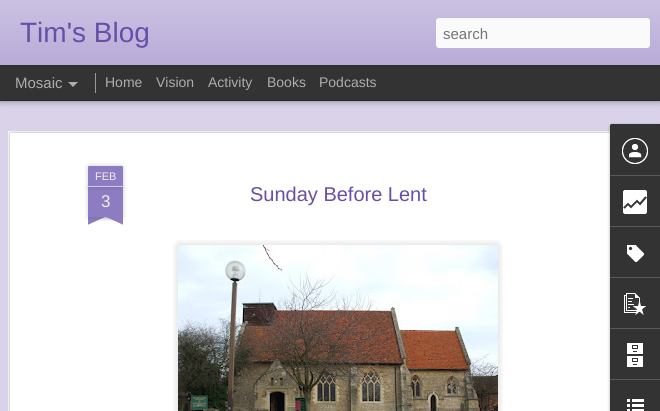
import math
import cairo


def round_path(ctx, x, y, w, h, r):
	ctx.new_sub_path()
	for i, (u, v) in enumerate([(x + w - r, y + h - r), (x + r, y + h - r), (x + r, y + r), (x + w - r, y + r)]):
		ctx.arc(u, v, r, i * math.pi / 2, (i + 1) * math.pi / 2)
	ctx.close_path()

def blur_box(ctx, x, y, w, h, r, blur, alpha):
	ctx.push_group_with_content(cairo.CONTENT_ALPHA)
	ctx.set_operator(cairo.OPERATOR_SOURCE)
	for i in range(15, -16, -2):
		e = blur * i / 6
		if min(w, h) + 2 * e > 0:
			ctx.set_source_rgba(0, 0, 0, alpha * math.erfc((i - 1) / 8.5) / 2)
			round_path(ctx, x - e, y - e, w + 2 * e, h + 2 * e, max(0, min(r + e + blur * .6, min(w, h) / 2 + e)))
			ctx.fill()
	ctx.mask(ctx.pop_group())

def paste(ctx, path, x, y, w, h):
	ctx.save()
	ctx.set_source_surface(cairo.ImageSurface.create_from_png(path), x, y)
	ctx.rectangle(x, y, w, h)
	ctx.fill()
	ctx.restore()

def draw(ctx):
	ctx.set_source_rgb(0.2, 0.2, 0.2)
	ctx.paint()
	ctx.set_source_rgb(0.851, 0.824, 0.914)
	ctx.rectangle(0, 101, 660, 310)
	ctx.fill()
	ctx.set_source_rgb(0, 0, 0)
	blur_box(ctx, 0, 65, 660, 35, 0, 4, 0.5)
	ctx.set_source_rgb(0.2, 0.2, 0.2)
	ctx.rectangle(0, 65, 660, 35)
	ctx.fill()
	ctx.set_source_rgb(0.6, 0.6, 0.6)
	ctx.rectangle(95, 73, 1, 20)
	ctx.fill()
	ctx.set_source_rgb(0, 0, 0)
	blur_box(ctx, 0, 0, 660, 65, 0, 2.5, 0.3)
	gradient = cairo.LinearGradient(0, 0, 0, 65)
	gradient.add_color_stop_rgba(0, 0.796, 0.757, 0.886, 1)
	gradient.add_color_stop_rgba(1, 0.722, 0.671, 0.847, 1)
	ctx.set_source(gradient)
	ctx.rectangle(0, 0, 660, 65)
	ctx.fill()
	ctx.select_font_face('Liberation Sans')
	ctx.set_font_size(28)
	ctx.set_source_rgb(0.404, 0.306, 0.655)
	ctx.move_to(20, 42)
	ctx.show_text('Tim\'s Blog')
	ctx.set_source_rgb(0.98, 0.98, 0.98)
	round_path(ctx, 436, 18, 214, 30, 3)
	ctx.fill()
	ctx.set_font_size(15)
	ctx.set_source_rgb(0.459, 0.459, 0.459)
	ctx.move_to(443, 39)
	ctx.show_text('search')
	ctx.set_source_rgb(0.678, 0.678, 0.678)
	ctx.move_to(15, 88)
	ctx.show_text('Mosaic')
	ctx.new_path()
	ctx.move_to(68, 82)
	ctx.line_to(78, 82)
	ctx.line_to(73, 87)
	ctx.close_path()
	ctx.fill()
	ctx.set_font_size(14)
	for x, y, s in [
		(105, 87, 'Home'),
		(156, 87, 'Vision'),
		(208, 87, 'Activity'),
		(267, 87, 'Books'),
		(319, 87, 'Podcasts'),
	]:
		ctx.move_to(x, y)
		ctx.show_text(s)
	ctx.set_source_rgb(1, 1, 1)
	ctx.rectangle(8, 131, 602, 280)
	ctx.fill()
	paste(ctx, 'media/1.png', 8, 131, 602, 280)
	ctx.set_source_rgb(0, 0, 0)
	blur_box(ctx, 88, 187, 35, 30, 0, 2.5, 0.2)
	ctx.set_source_rgb(0.557, 0.486, 0.765)
	ctx.rectangle(88, 187, 35, 30)
	ctx.fill()
	ctx.set_source_rgb(0, 0, 0)
	blur_box(ctx, 88, 166, 35, 21, 1, 2.5, 0.2)
	ctx.set_source_rgb(0.557, 0.486, 0.765)
	ctx.new_path()
	ctx.move_to(89, 166)
	ctx.line_to(122, 166)
	ctx.curve_to(122.5, 166, 123, 166.5, 123, 167)
	ctx.line_to(123, 187)
	ctx.line_to(88, 187)
	ctx.line_to(88, 167)
	ctx.curve_to(88, 166.5, 88.5, 166, 89, 166)
	ctx.close_path()
	ctx.fill()
	ctx.set_source_rgb(0.824, 0.796, 0.906)
	ctx.rectangle(88, 186, 35, 1)
	ctx.fill()
	ctx.set_font_size(11)
	ctx.set_source_rgb(0.933, 0.933, 0.933)
	ctx.move_to(95, 180)
	ctx.show_text('FEB')
	ctx.set_font_size(17)
	ctx.move_to(101, 207)
	ctx.show_text('3')
	ctx.save()
	ctx.rectangle(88, 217, 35, 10)
	ctx.clip()
	ctx.set_source_rgb(0, 0, 0)
	blur_box(ctx, 79, 207, 50, 10, 0, 2.5, 0.2)
	ctx.restore()
	ctx.save()
	ctx.rectangle(88, 217, 35, 10)
	ctx.clip()
	ctx.set_source_rgb(0.557, 0.486, 0.765)
	ctx.new_path()
	ctx.move_to(79, 218)
	ctx.line_to(125, 197)
	ctx.line_to(129, 206)
	ctx.line_to(83, 227)
	ctx.close_path()
	ctx.fill()
	ctx.restore()
	ctx.save()
	ctx.rectangle(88, 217, 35, 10)
	ctx.clip()
	ctx.set_source_rgb(0, 0, 0)
	blur_box(ctx, 82, 207, 50, 10, 0, 2.5, 0.2)
	ctx.restore()
	ctx.save()
	ctx.rectangle(88, 217, 35, 10)
	ctx.clip()
	ctx.set_source_rgb(0.557, 0.486, 0.765)
	ctx.new_path()
	ctx.move_to(86, 197)
	ctx.line_to(132, 218)
	ctx.line_to(128, 227)
	ctx.line_to(82, 206)
	ctx.close_path()
	ctx.fill()
	ctx.restore()
	ctx.set_font_size(20)
	ctx.set_source_rgb(0.404, 0.306, 0.655)
	ctx.move_to(250, 201)
	ctx.show_text('Sunday Before Lent')
	paste(ctx, 'media/2.png', 173, 240, 330, 171)
	ctx.set_source_rgb(0, 0, 0)
	blur_box(ctx, 610, 125, 50, 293, 2, 1.5, 0.3)
	ctx.set_source_rgb(0.2, 0.2, 0.2)
	ctx.new_path()
	ctx.move_to(612, 124)
	ctx.line_to(660, 124)
	ctx.line_to(660, 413)
	ctx.line_to(612, 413)
	ctx.curve_to(611, 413, 610, 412, 610, 411)
	ctx.line_to(610, 126)
	ctx.curve_to(610, 125, 611, 124, 612, 124)
	ctx.close_path()
	ctx.fill()
	ctx.new_path()
	ctx.move_to(612, 124)
	ctx.line_to(660, 124)
	ctx.line_to(660, 175)
	ctx.line_to(610, 175)
	ctx.line_to(610, 126)
	ctx.curve_to(610, 125, 611, 124, 612, 124)
	ctx.close_path()
	ctx.fill()
	paste(ctx, 'media/3.png', 622, 138, 26, 26)
	ctx.set_source_rgb(0.345, 0.345, 0.345)
	ctx.rectangle(610, 175, 50, 1)
	ctx.fill()
	paste(ctx, 'media/4.png', 623, 190, 24, 24)
	ctx.rectangle(610, 226, 50, 1)
	ctx.fill()
	paste(ctx, 'media/5.png', 627, 245, 17, 17)
	ctx.rectangle(610, 277, 50, 1)
	ctx.fill()
	paste(ctx, 'media/6.png', 624, 293, 22, 22)
	ctx.rectangle(610, 328, 50, 1)
	ctx.fill()
	paste(ctx, 'media/7.png', 627, 343, 16, 24)
	ctx.rectangle(610, 379, 50, 1)
	ctx.fill()
	paste(ctx, 'media/8.png', 627, 399, 17, 12)


surface = cairo.ImageSurface(cairo.FORMAT_RGB24, 660, 411)
ctx = cairo.Context(surface)
options = cairo.FontOptions()
options.set_hint_metrics(cairo.HINT_METRICS_OFF)
options.set_hint_style(cairo.HINT_STYLE_NONE)
ctx.set_font_options(options)
ctx.set_miter_limit(4)
draw(ctx)
surface.write_to_png('image.png')
